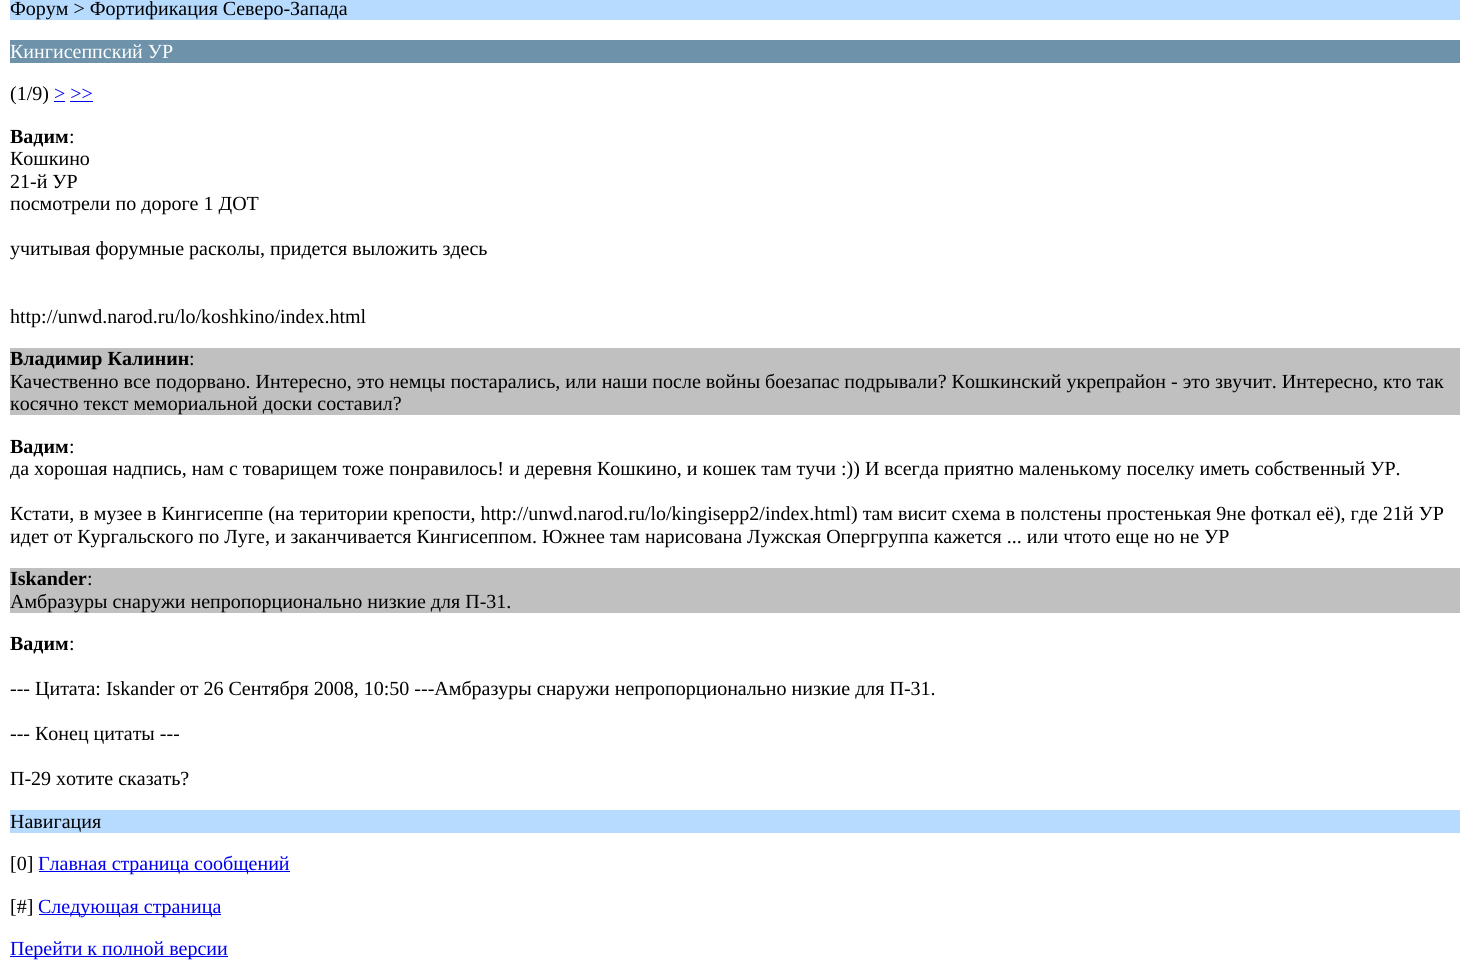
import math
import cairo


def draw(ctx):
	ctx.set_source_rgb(1, 1, 1)
	ctx.paint()
	ctx.set_source_rgb(0.714, 0.859, 1)
	ctx.rectangle(10, 0, 1450, 20)
	ctx.fill()
	ctx.select_font_face('Liberation Serif')
	ctx.set_font_size(20)
	ctx.set_source_rgb(0, 0, 0)
	ctx.move_to(10, 15)
	ctx.show_text('Форум > Фортификация Северо-Запада')
	ctx.set_source_rgb(0.427, 0.573, 0.667)
	ctx.rectangle(10, 40, 1450, 23)
	ctx.fill()
	ctx.set_source_rgb(1, 1, 1)
	ctx.move_to(10, 58)
	ctx.show_text('Кингисеппский УР')
	ctx.set_source_rgb(0, 0, 0)
	ctx.move_to(10, 100)
	ctx.show_text('(1/9)')
	ctx.set_source_rgb(0, 0, 0.933)
	ctx.move_to(54, 100)
	ctx.show_text('> >>')
	ctx.rectangle(54, 101, 11, 1)
	ctx.fill()
	ctx.rectangle(70, 101, 23, 1)
	ctx.fill()
	ctx.select_font_face('Liberation Serif', cairo.FONT_SLANT_NORMAL, cairo.FONT_WEIGHT_BOLD)
	ctx.set_source_rgb(0, 0, 0)
	ctx.move_to(10, 143)
	ctx.show_text('Вадим')
	ctx.select_font_face('Liberation Serif')
	for x, y, s in [
		(69, 143, ':'),
		(10, 165, 'Кошкино'),
		(10, 188, '21-й УР'),
		(10, 210, 'посмотрели по дороге 1 ДОТ'),
		(10, 255, 'учитывая форумные расколы, придется выложить здесь'),
		(10, 323, 'http://unwd.narod.ru/lo/koshkino/index.html'),
	]:
		ctx.move_to(x, y)
		ctx.show_text(s)
	ctx.set_source_rgb(0.753, 0.753, 0.753)
	ctx.rectangle(10, 348, 1450, 67)
	ctx.fill()
	ctx.select_font_face('Liberation Serif', cairo.FONT_SLANT_NORMAL, cairo.FONT_WEIGHT_BOLD)
	ctx.set_source_rgb(0, 0, 0)
	ctx.move_to(10, 365)
	ctx.show_text('Владимир Калинин')
	ctx.select_font_face('Liberation Serif')
	for x, y, s in [
		(189, 365, ':'),
		(10, 388, 'Качественно все подорвано. Интересно, это немцы постарались, или наши после войны боезапас подрывали? Кошкинский укрепрайон - это звучит. Интересно, кто так'),
		(10, 410, 'косячно текст мемориальной доски составил?'),
	]:
		ctx.move_to(x, y)
		ctx.show_text(s)
	ctx.select_font_face('Liberation Serif', cairo.FONT_SLANT_NORMAL, cairo.FONT_WEIGHT_BOLD)
	ctx.move_to(10, 453)
	ctx.show_text('Вадим')
	ctx.select_font_face('Liberation Serif')
	for x, y, s in [
		(69, 453, ':'),
		(10, 475, 'да хорошая надпись, нам с товарищем тоже понравилось! и деревня Кошкино, и кошек там тучи :)) И всегда приятно маленькому поселку иметь собственный УР.'),
		(10, 520, 'Кстати, в музее в Кингисеппе (на територии крепости, http://unwd.narod.ru/lo/kingisepp2/index.html) там висит схема в полстены простенькая 9не фоткал её), где 21й УР'),
		(10, 543, 'идет от Кургальского по Луге, и заканчивается Кингисеппом. Южнее там нарисована Лужская Опергруппа кажется ... или чтото еще но не УР'),
	]:
		ctx.move_to(x, y)
		ctx.show_text(s)
	ctx.set_source_rgb(0.753, 0.753, 0.753)
	ctx.rectangle(10, 568, 1450, 45)
	ctx.fill()
	ctx.select_font_face('Liberation Serif', cairo.FONT_SLANT_NORMAL, cairo.FONT_WEIGHT_BOLD)
	ctx.set_source_rgb(0, 0, 0)
	ctx.move_to(10, 585)
	ctx.show_text('Iskander')
	ctx.select_font_face('Liberation Serif')
	ctx.move_to(87, 585)
	ctx.show_text(':')
	ctx.move_to(10, 608)
	ctx.show_text('Амбразуры снаружи непропорционально низкие для П-31.')
	ctx.select_font_face('Liberation Serif', cairo.FONT_SLANT_NORMAL, cairo.FONT_WEIGHT_BOLD)
	ctx.move_to(10, 650)
	ctx.show_text('Вадим')
	ctx.select_font_face('Liberation Serif')
	for x, y, s in [
		(69, 650, ':'),
		(10, 695, '--- Цитата: Iskander от 26 Сентября 2008, 10:50 ---Амбразуры снаружи непропорционально низкие для П-31.'),
		(10, 740, '--- Конец цитаты ---'),
		(10, 785, 'П-29 хотите сказать?'),
	]:
		ctx.move_to(x, y)
		ctx.show_text(s)
	ctx.set_source_rgb(0.714, 0.859, 1)
	ctx.rectangle(10, 810, 1450, 23)
	ctx.fill()
	ctx.set_source_rgb(0, 0, 0)
	ctx.move_to(10, 828)
	ctx.show_text('Навигация')
	ctx.move_to(10, 870)
	ctx.show_text('[0]')
	ctx.set_source_rgb(0, 0, 0.933)
	ctx.rectangle(39, 871, 251, 1)
	ctx.fill()
	ctx.move_to(38, 870)
	ctx.show_text('Главная страница сообщений')
	ctx.set_source_rgb(0, 0, 0)
	ctx.move_to(10, 913)
	ctx.show_text('[#]')
	ctx.set_source_rgb(0, 0, 0.933)
	ctx.rectangle(39, 914, 182, 1)
	ctx.fill()
	ctx.move_to(38, 913)
	ctx.show_text('Следующая страница')
	ctx.rectangle(10, 956, 218, 1)
	ctx.fill()
	ctx.move_to(10, 955)
	ctx.show_text('Перейти к полной версии')


surface = cairo.ImageSurface(cairo.FORMAT_RGB24, 1470, 967)
ctx = cairo.Context(surface)
options = cairo.FontOptions()
options.set_hint_metrics(cairo.HINT_METRICS_OFF)
options.set_hint_style(cairo.HINT_STYLE_NONE)
ctx.set_font_options(options)
ctx.set_miter_limit(4)
draw(ctx)
surface.write_to_png('image.png')
